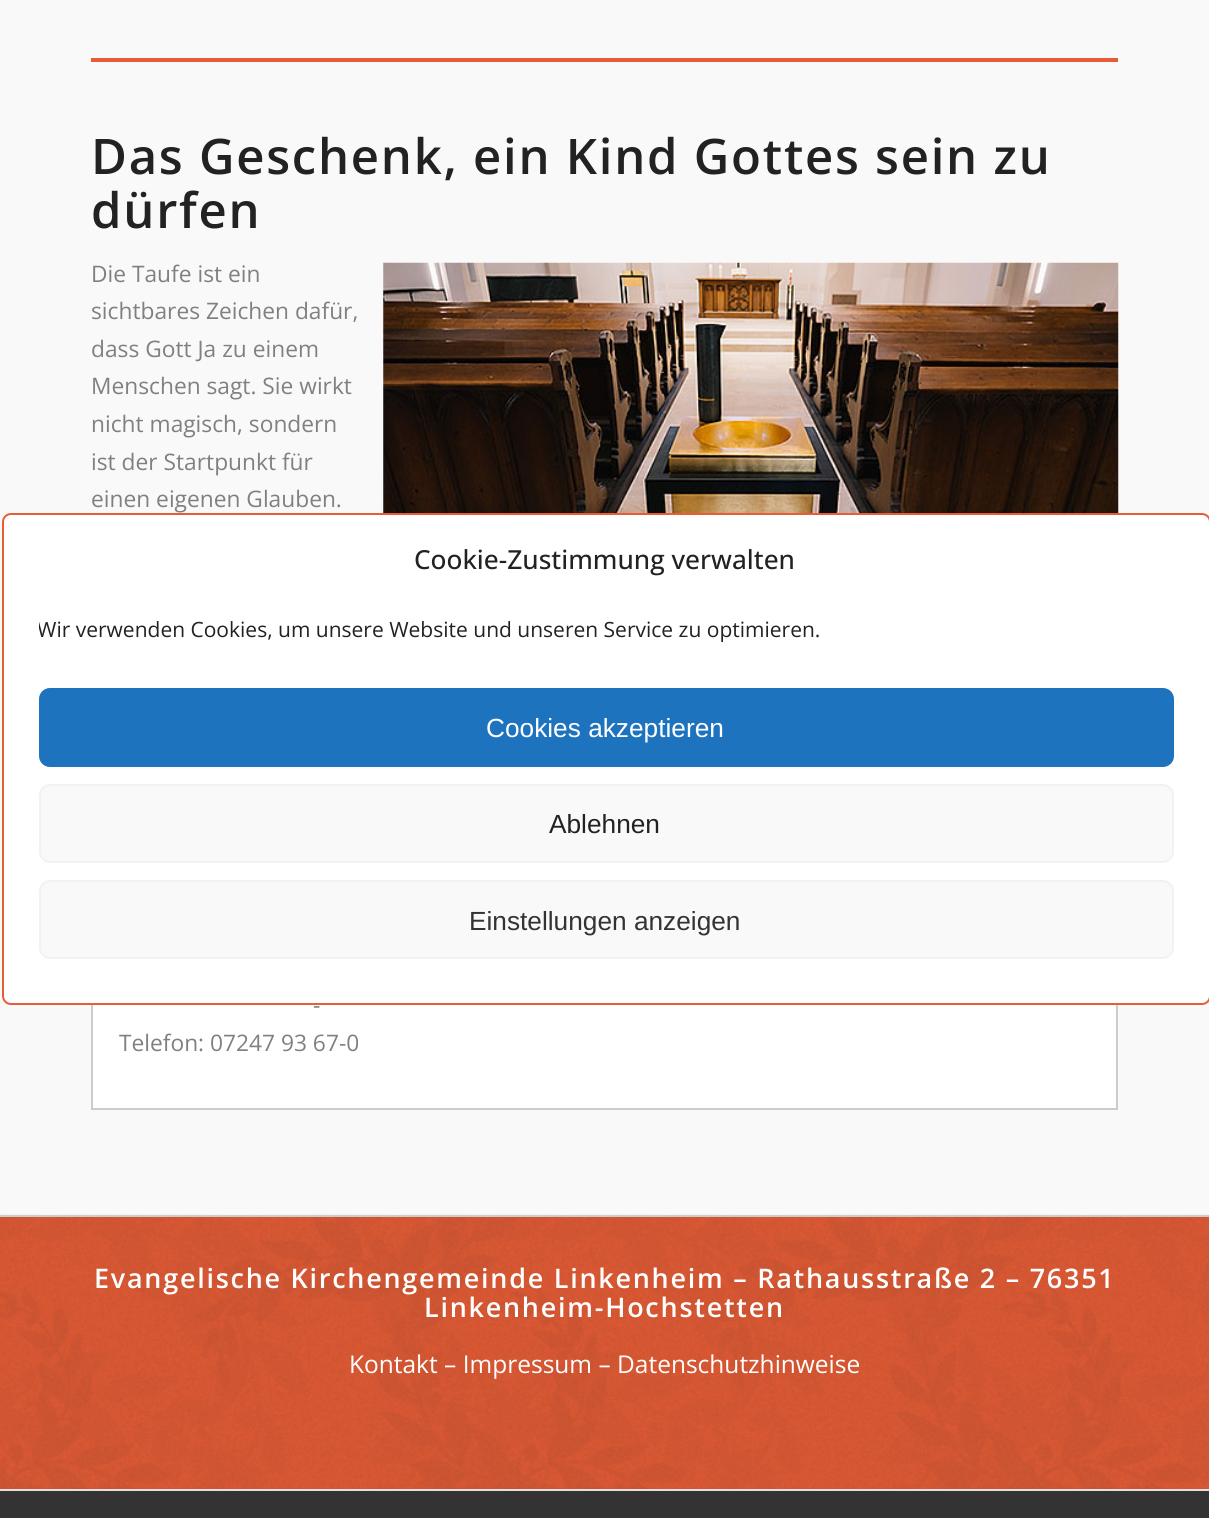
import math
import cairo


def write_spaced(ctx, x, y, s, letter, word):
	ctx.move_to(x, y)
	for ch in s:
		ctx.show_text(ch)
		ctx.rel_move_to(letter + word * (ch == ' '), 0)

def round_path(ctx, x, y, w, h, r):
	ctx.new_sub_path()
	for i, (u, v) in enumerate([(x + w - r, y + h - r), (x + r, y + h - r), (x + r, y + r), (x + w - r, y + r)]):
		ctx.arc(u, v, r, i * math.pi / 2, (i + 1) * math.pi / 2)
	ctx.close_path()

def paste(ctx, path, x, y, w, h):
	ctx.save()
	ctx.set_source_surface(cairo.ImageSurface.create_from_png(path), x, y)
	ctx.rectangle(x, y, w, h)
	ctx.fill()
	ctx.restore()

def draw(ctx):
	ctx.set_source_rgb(0.976, 0.976, 0.976)
	ctx.paint()
	ctx.set_source_rgb(0.906, 0.357, 0.212)
	ctx.rectangle(91, 58, 1027, 4)
	ctx.fill()
	ctx.select_font_face('Open Sans SemiBold')
	ctx.set_font_size(49)
	ctx.set_source_rgb(0.133, 0.133, 0.133)
	write_spaced(ctx, 91, 174, 'Das Geschenk, ein Kind Gottes sein zu', 1.75, 0)
	write_spaced(ctx, 91, 228, 'dürfen', 1.75, 0)
	ctx.select_font_face('Open Sans')
	ctx.set_font_size(22.75)
	ctx.set_source_rgb(0.502, 0.502, 0.502)
	ctx.move_to(91, 282)
	ctx.show_text('Die Taufe ist ein')
	paste(ctx, 'media/1.png', 383, 262, 736, 251)
	for x, y, s in [
		(91, 319, 'sichtbares Zeichen dafür,'),
		(91, 357, 'dass Gott Ja zu einem'),
		(91, 394, 'Menschen sagt. Sie wirkt'),
		(91, 432, 'nicht magisch, sondern'),
		(91, 470, 'ist der Startpunkt für'),
		(91, 507, 'einen eigenen Glauben.'),
	]:
		ctx.move_to(x, y)
		ctx.show_text(s)
	ctx.set_source_rgb(1, 1, 1)
	ctx.rectangle(93, 1005, 1023, 103)
	ctx.fill()
	ctx.rectangle(92, 845, 1025, 264)
	ctx.set_source_rgb(0.8, 0.8, 0.8)
	ctx.stroke()
	ctx.set_source_rgb(0.502, 0.502, 0.502)
	ctx.move_to(313, 1013)
	ctx.show_text('-')
	ctx.move_to(119, 1051)
	ctx.show_text('Telefon: 07247 93 67-0')
	ctx.set_source_rgb(0.906, 0.365, 0.212)
	ctx.rectangle(0, 1217, 1209, 272)
	ctx.fill()
	paste(ctx, 'media/2.png', 0, 1214, 1209, 275)
	ctx.set_source_rgb(0.8, 0.8, 0.8)
	ctx.rectangle(0, 1215, 1209, 2)
	ctx.fill()
	ctx.select_font_face('Open Sans SemiBold')
	ctx.set_font_size(26.95)
	ctx.set_source_rgb(1, 1, 1)
	write_spaced(ctx, 94, 1288, 'Evangelische Kirchengemeinde Linkenheim – Rathausstraße 2 – 76351', 1.75, 0)
	write_spaced(ctx, 424, 1317, 'Linkenheim-Hochstetten', 1.75, 0)
	ctx.select_font_face('Open Sans')
	ctx.set_font_size(24.5)
	ctx.move_to(349, 1373)
	ctx.show_text('Kontakt – Impressum – Datenschutzhinweise')
	ctx.set_source_rgb(0.2, 0.2, 0.2)
	ctx.rectangle(0, 1491, 1209, 27)
	ctx.fill()
	ctx.set_source_rgb(0.882, 0.882, 0.882)
	ctx.rectangle(0, 1489, 1209, 2)
	ctx.fill()
	ctx.set_source_rgb(1, 1, 1)
	round_path(ctx, 3, 514, 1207, 490, 8)
	ctx.fill_preserve()
	ctx.set_source_rgb(0.906, 0.365, 0.212)
	ctx.stroke()
	ctx.select_font_face('Open Sans Medium')
	ctx.set_font_size(26.25)
	ctx.set_source_rgb(0.133, 0.133, 0.133)
	ctx.move_to(414, 569)
	ctx.show_text('Cookie-Zustimmung verwalten')
	ctx.save()
	ctx.rectangle(39, 613, 1135, 40)
	ctx.clip()
	ctx.select_font_face('Open Sans')
	ctx.set_font_size(21)
	ctx.move_to(37, 637)
	ctx.show_text('Wir verwenden Cookies, um unsere Website und unseren Service zu optimieren.')
	ctx.restore()
	ctx.set_source_rgb(0.118, 0.451, 0.745)
	round_path(ctx, 40, 689, 1133, 77, 10)
	ctx.fill_preserve()
	ctx.stroke()
	ctx.select_font_face('Liberation Sans')
	ctx.set_source_rgb(1, 1, 1)
	ctx.move_to(486, 737)
	ctx.show_text('Cookies akzeptieren')
	ctx.set_source_rgb(0.976, 0.976, 0.976)
	round_path(ctx, 40, 785, 1133, 77, 10)
	ctx.fill_preserve()
	ctx.set_source_rgb(0.949, 0.949, 0.949)
	ctx.stroke()
	ctx.set_source_rgb(0.133, 0.133, 0.133)
	ctx.move_to(549, 833)
	ctx.show_text('Ablehnen')
	ctx.set_source_rgb(0.976, 0.976, 0.976)
	round_path(ctx, 40, 881, 1133, 77, 10)
	ctx.fill_preserve()
	ctx.set_source_rgb(0.949, 0.949, 0.949)
	ctx.stroke()
	ctx.set_source_rgb(0.2, 0.2, 0.2)
	ctx.move_to(469, 930)
	ctx.show_text('Einstellungen anzeigen')


surface = cairo.ImageSurface(cairo.FORMAT_RGB24, 1209, 1518)
ctx = cairo.Context(surface)
options = cairo.FontOptions()
options.set_hint_metrics(cairo.HINT_METRICS_OFF)
options.set_hint_style(cairo.HINT_STYLE_NONE)
ctx.set_font_options(options)
ctx.set_miter_limit(4)
draw(ctx)
surface.write_to_png('image.png')
